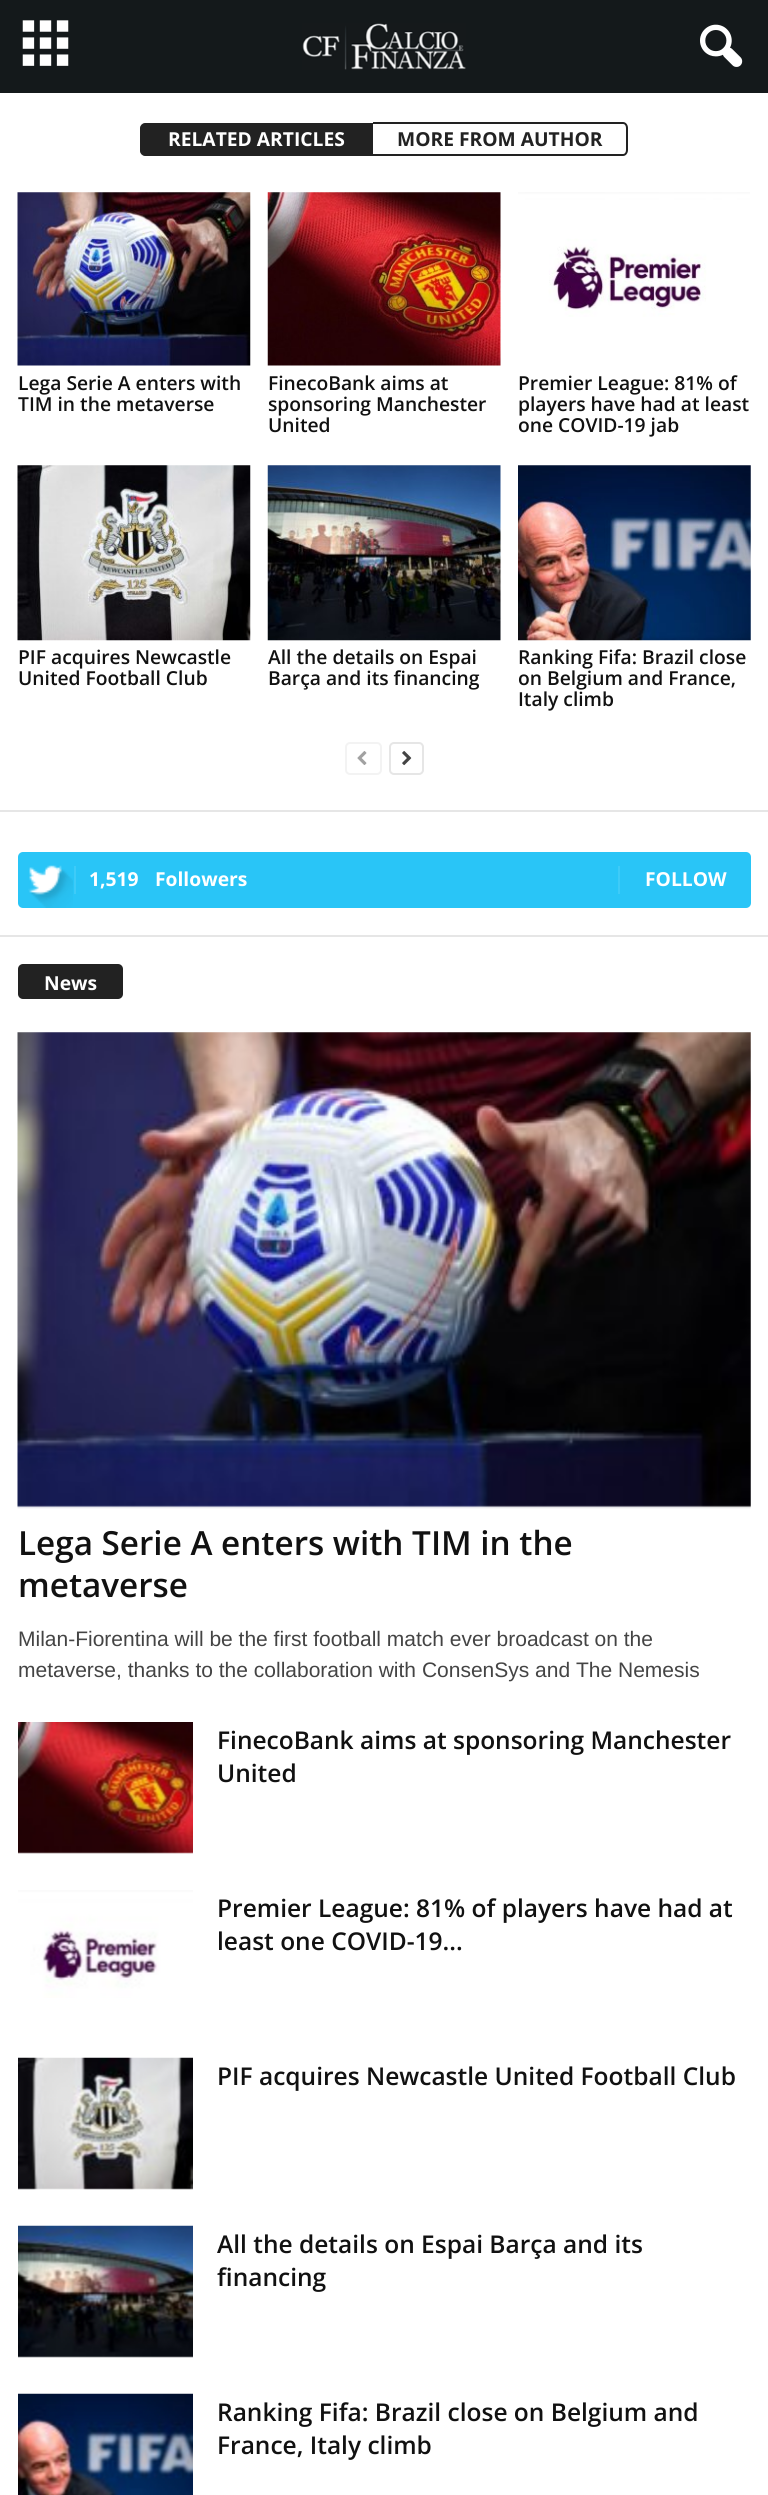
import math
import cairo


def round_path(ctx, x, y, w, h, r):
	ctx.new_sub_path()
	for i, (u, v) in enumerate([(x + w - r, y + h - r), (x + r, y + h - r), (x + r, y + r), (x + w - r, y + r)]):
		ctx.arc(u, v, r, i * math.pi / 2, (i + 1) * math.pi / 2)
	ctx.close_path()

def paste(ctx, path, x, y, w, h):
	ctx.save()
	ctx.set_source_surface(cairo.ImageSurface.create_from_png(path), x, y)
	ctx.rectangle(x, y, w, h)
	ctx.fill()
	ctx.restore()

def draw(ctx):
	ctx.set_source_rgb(1, 1, 1)
	ctx.paint()
	ctx.set_source_rgb(0.082, 0.098, 0.106)
	ctx.rectangle(0, 0, 768, 93)
	ctx.fill()
	paste(ctx, 'media/1.png', 22, 20, 47, 46)
	paste(ctx, 'media/2.png', 302, 23, 164, 47)
	paste(ctx, 'media/3.png', 700, 24, 43, 43)
	ctx.set_source_rgb(0.133, 0.133, 0.133)
	ctx.new_path()
	ctx.move_to(145, 124)
	ctx.line_to(372, 124)
	ctx.line_to(372, 155)
	ctx.line_to(145, 155)
	ctx.curve_to(143, 155, 141, 153, 141, 151)
	ctx.line_to(141, 128)
	ctx.curve_to(141, 126, 143, 124, 145, 124)
	ctx.close_path()
	ctx.fill_preserve()
	ctx.stroke()
	ctx.select_font_face('Open Sans', cairo.FONT_SLANT_NORMAL, cairo.FONT_WEIGHT_BOLD)
	ctx.set_font_size(19.25)
	ctx.set_source_rgb(1, 1, 1)
	ctx.move_to(168, 146)
	ctx.show_text('RELATED ARTICLES')
	ctx.set_source_rgb(0.133, 0.133, 0.133)
	ctx.set_fill_rule(cairo.FILL_RULE_EVEN_ODD)
	ctx.new_path()
	ctx.move_to(373, 122)
	ctx.line_to(623, 122)
	ctx.curve_to(626, 122, 628, 125, 628, 128)
	ctx.line_to(628, 150)
	ctx.curve_to(628, 153, 626, 156, 623, 156)
	ctx.line_to(373, 156)
	ctx.close_path()
	ctx.move_to(373, 124)
	ctx.line_to(623, 124)
	ctx.curve_to(625, 124, 626, 126, 626, 128)
	ctx.line_to(626, 150)
	ctx.curve_to(626, 152, 625, 154, 623, 154)
	ctx.line_to(373, 154)
	ctx.close_path()
	ctx.fill()
	ctx.move_to(397, 146)
	ctx.show_text('MORE FROM AUTHOR')
	paste(ctx, 'media/4.png', 17, 192, 234, 174)
	ctx.select_font_face('Open Sans SemiBold')
	ctx.set_source_rgb(0.067, 0.067, 0.067)
	ctx.move_to(18, 390)
	ctx.show_text('Lega Serie A enters with')
	ctx.move_to(18, 411)
	ctx.show_text('TIM in the metaverse')
	paste(ctx, 'media/5.png', 267, 192, 234, 174)
	for x, y, s in [
		(268, 390, 'FinecoBank aims at'),
		(268, 411, 'sponsoring Manchester'),
		(268, 432, 'United'),
	]:
		ctx.move_to(x, y)
		ctx.show_text(s)
	paste(ctx, 'media/6.png', 518, 192, 232, 125)
	for x, y, s in [
		(518, 390, 'Premier League: 81% of'),
		(518, 411, 'players have had at least'),
		(518, 432, 'one COVID-19 jab'),
	]:
		ctx.move_to(x, y)
		ctx.show_text(s)
	paste(ctx, 'media/7.png', 17, 465, 234, 176)
	ctx.move_to(18, 664)
	ctx.show_text('PIF acquires Newcastle')
	ctx.move_to(18, 685)
	ctx.show_text('United Football Club')
	paste(ctx, 'media/8.png', 267, 465, 234, 176)
	ctx.move_to(268, 664)
	ctx.show_text('All the details on Espai')
	ctx.move_to(268, 685)
	ctx.show_text('Barça and its financing')
	paste(ctx, 'media/9.png', 518, 465, 233, 176)
	for x, y, s in [
		(518, 664, 'Ranking Fifa: Brazil close'),
		(518, 685, 'on Belgium and France,'),
		(518, 706, 'Italy climb'),
	]:
		ctx.move_to(x, y)
		ctx.show_text(s)
	round_path(ctx, 346, 743, 35, 31, 4)
	ctx.set_source_rgb(0.953, 0.953, 0.953)
	ctx.stroke()
	paste(ctx, 'media/10.png', 357, 751, 10, 14)
	round_path(ctx, 390, 743, 33, 31, 4)
	ctx.set_source_rgb(0.902, 0.902, 0.902)
	ctx.stroke()
	paste(ctx, 'media/11.png', 402, 751, 10, 15)
	ctx.rectangle(0, 810, 768, 2)
	ctx.fill()
	ctx.set_source_rgb(0.161, 0.773, 0.965)
	round_path(ctx, 18, 852, 733, 56, 5)
	ctx.fill()
	paste(ctx, 'media/12.png', 28, 865, 45, 43)
	ctx.set_source_rgb(0.243, 0.796, 0.969)
	ctx.rectangle(74, 866, 2, 28)
	ctx.fill()
	ctx.select_font_face('Open Sans', cairo.FONT_SLANT_NORMAL, cairo.FONT_WEIGHT_BOLD)
	ctx.set_source_rgb(1, 1, 1)
	ctx.move_to(89, 886)
	ctx.show_text('1,519')
	ctx.move_to(155, 886)
	ctx.show_text('Followers')
	ctx.set_source_rgb(0.243, 0.796, 0.969)
	ctx.rectangle(618, 866, 2, 28)
	ctx.fill()
	ctx.set_source_rgb(1, 1, 1)
	ctx.move_to(645, 886)
	ctx.show_text('FOLLOW')
	ctx.set_source_rgb(0.902, 0.902, 0.902)
	ctx.rectangle(0, 935, 768, 2)
	ctx.fill()
	ctx.set_source_rgb(0.133, 0.133, 0.133)
	round_path(ctx, 18, 964, 105, 35, 5)
	ctx.fill()
	ctx.set_source_rgb(1, 1, 1)
	ctx.move_to(44, 990)
	ctx.show_text('News')
	paste(ctx, 'media/13.png', 17, 1032, 734, 477)
	ctx.select_font_face('Open Sans SemiBold')
	ctx.set_font_size(33.25)
	ctx.set_source_rgb(0.067, 0.067, 0.067)
	ctx.move_to(18, 1555)
	ctx.show_text('Lega Serie A enters with TIM in the')
	ctx.move_to(18, 1597)
	ctx.show_text('metaverse')
	ctx.select_font_face('Liberation Sans')
	ctx.set_font_size(21)
	ctx.set_source_rgb(0.267, 0.267, 0.267)
	ctx.move_to(18, 1646)
	ctx.show_text('Milan-Fiorentina will be the first football match ever broadcast on the')
	ctx.move_to(18, 1677)
	ctx.show_text('metaverse, thanks to the collaboration with ConsenSys and The Nemesis')
	paste(ctx, 'media/14.png', 18, 1722, 175, 132)
	ctx.select_font_face('Open Sans SemiBold')
	ctx.set_font_size(24.5)
	ctx.set_source_rgb(0.067, 0.067, 0.067)
	ctx.move_to(217, 1749)
	ctx.show_text('FinecoBank aims at sponsoring Manchester')
	ctx.move_to(217, 1782)
	ctx.show_text('United')
	paste(ctx, 'media/15.png', 18, 1890, 175, 108)
	ctx.move_to(217, 1917)
	ctx.show_text('Premier League: 81% of players have had at')
	ctx.move_to(217, 1950)
	ctx.show_text('least one COVID-19...')
	paste(ctx, 'media/16.png', 18, 2057, 175, 133)
	ctx.move_to(217, 2085)
	ctx.show_text('PIF acquires Newcastle United Football Club')
	paste(ctx, 'media/17.png', 18, 2225, 175, 133)
	ctx.move_to(217, 2253)
	ctx.show_text('All the details on Espai Barça and its')
	ctx.move_to(217, 2286)
	ctx.show_text('financing')
	paste(ctx, 'media/18.png', 18, 2393, 175, 102)
	ctx.move_to(217, 2421)
	ctx.show_text('Ranking Fifa: Brazil close on Belgium and')
	ctx.move_to(217, 2454)
	ctx.show_text('France, Italy climb')


surface = cairo.ImageSurface(cairo.FORMAT_RGB24, 768, 2495)
ctx = cairo.Context(surface)
options = cairo.FontOptions()
options.set_hint_metrics(cairo.HINT_METRICS_OFF)
options.set_hint_style(cairo.HINT_STYLE_NONE)
ctx.set_font_options(options)
ctx.set_miter_limit(4)
draw(ctx)
surface.write_to_png('image.png')
